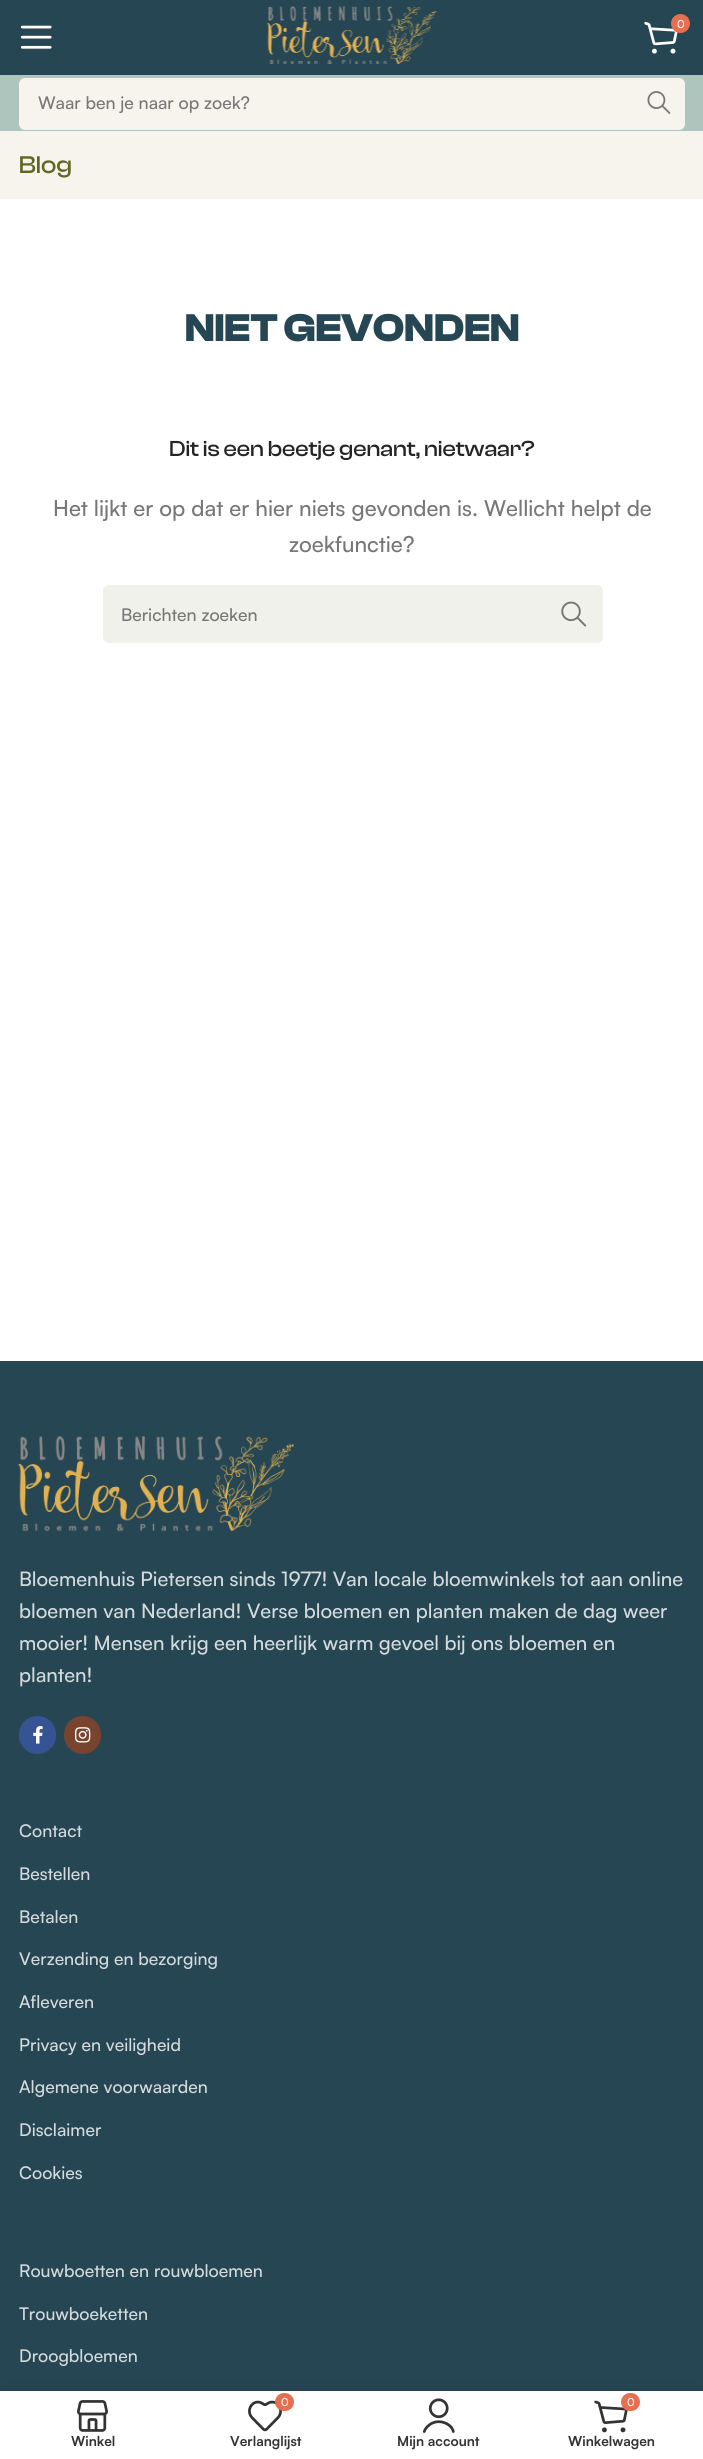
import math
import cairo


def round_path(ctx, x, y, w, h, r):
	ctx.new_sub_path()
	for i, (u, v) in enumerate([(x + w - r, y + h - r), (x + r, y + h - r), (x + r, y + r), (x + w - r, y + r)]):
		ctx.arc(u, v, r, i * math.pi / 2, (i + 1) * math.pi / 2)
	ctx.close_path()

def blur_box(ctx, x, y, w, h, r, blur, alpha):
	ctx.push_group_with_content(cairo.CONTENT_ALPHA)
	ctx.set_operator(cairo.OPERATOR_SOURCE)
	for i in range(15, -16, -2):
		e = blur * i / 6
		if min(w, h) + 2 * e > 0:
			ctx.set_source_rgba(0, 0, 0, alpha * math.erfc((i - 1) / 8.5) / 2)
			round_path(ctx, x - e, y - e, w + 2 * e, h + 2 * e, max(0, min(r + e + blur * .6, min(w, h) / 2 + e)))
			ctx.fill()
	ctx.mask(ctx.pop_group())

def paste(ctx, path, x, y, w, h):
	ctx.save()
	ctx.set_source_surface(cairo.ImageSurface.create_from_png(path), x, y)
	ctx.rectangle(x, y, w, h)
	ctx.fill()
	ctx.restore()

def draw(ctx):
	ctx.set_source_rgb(1, 1, 1)
	ctx.paint()
	ctx.set_source_rgb(0.149, 0.275, 0.325)
	ctx.rectangle(0, 0, 703, 75)
	ctx.fill()
	paste(ctx, 'media/1.png', 267, 6, 170, 58)
	paste(ctx, 'media/2.png', 644, 21, 34, 33)
	ctx.set_source_rgb(0.906, 0.435, 0.318)
	ctx.arc(680.5, 23.5, 9.5, 0, 2 * math.pi)
	ctx.fill()
	ctx.select_font_face('Satoshi Medium')
	ctx.set_font_size(11)
	ctx.set_source_rgb(1, 1, 1)
	ctx.move_to(677, 28)
	ctx.show_text('0')
	paste(ctx, 'media/3.png', 20, 25, 32, 24)
	ctx.set_source_rgb(0.678, 0.773, 0.741)
	ctx.rectangle(0, 75, 703, 56)
	ctx.fill()
	ctx.set_source_rgb(0.965, 0.953, 0.929)
	round_path(ctx, 19, 78, 666, 52, 6)
	ctx.fill()
	ctx.set_font_size(17.5)
	ctx.set_source_rgb(0.467, 0.467, 0.467)
	ctx.move_to(38, 109)
	ctx.show_text('Waar ben je naar op zoek?')
	paste(ctx, 'media/4.png', 647, 91, 24, 23)
	ctx.set_source_rgb(0.965, 0.953, 0.929)
	ctx.rectangle(0, 131, 703, 68)
	ctx.fill()
	ctx.select_font_face('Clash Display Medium')
	ctx.set_font_size(25)
	ctx.set_source_rgb(0.369, 0.408, 0.129)
	ctx.move_to(19, 173)
	ctx.show_text('Blog')
	ctx.select_font_face('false', cairo.FONT_SLANT_NORMAL, cairo.FONT_WEIGHT_BOLD)
	ctx.set_font_size(40)
	ctx.set_source_rgb(0.149, 0.275, 0.325)
	ctx.move_to(185, 341)
	ctx.show_text('NIET GEVONDEN')
	ctx.select_font_face('Clash Display Medium')
	ctx.set_font_size(22.5)
	ctx.set_source_rgb(0.141, 0.141, 0.141)
	ctx.move_to(169, 456)
	ctx.show_text('Dit is een beetje genant, nietwaar?')
	ctx.select_font_face('Satoshi Medium')
	ctx.set_font_size(22)
	ctx.set_source_rgb(0.467, 0.467, 0.467)
	ctx.move_to(53, 516)
	ctx.show_text('Het lijkt er op dat er hier niets gevonden is. Wellicht helpt de')
	ctx.move_to(289, 552)
	ctx.show_text('zoekfunctie?')
	ctx.set_source_rgb(0.945, 0.945, 0.922)
	round_path(ctx, 103, 585, 500, 58, 6)
	ctx.fill()
	ctx.set_font_size(17.5)
	ctx.set_source_rgb(0.467, 0.467, 0.467)
	ctx.move_to(121, 621)
	ctx.show_text('Berichten zoeken')
	paste(ctx, 'media/5.png', 561, 601, 26, 26)
	ctx.set_source_rgb(0.149, 0.275, 0.325)
	ctx.rectangle(0, 1361, 703, 1030)
	ctx.fill()
	paste(ctx, 'media/6.png', 18, 1436, 276, 96)
	ctx.set_font_size(20)
	ctx.set_source_rgb(0.831, 0.855, 0.867)
	for x, y, s in [
		(19, 1586, 'Bloemenhuis Pietersen sinds 1977! Van locale bloemwinkels tot aan online'),
		(19, 1618, 'bloemen van Nederland! Verse bloemen en planten maken de dag weer'),
		(19, 1650, 'mooier! Mensen krijg een heerlijk warm gevoel bij ons bloemen en'),
		(19, 1682, 'planten!'),
	]:
		ctx.move_to(x, y)
		ctx.show_text(s)
	ctx.set_source_rgb(0.212, 0.329, 0.576)
	round_path(ctx, 19, 1716, 37, 38, 18.5)
	ctx.fill()
	paste(ctx, 'media/7.png', 33, 1726, 10, 18)
	ctx.set_source_rgb(0.467, 0.267, 0.188)
	round_path(ctx, 64, 1716, 37, 38, 18.5)
	ctx.fill()
	paste(ctx, 'media/8.png', 75, 1727, 16, 16)
	ctx.set_font_size(17.5)
	ctx.set_source_rgb(0.831, 0.855, 0.867)
	for x, y, s in [
		(19, 1837, 'Contact'),
		(19, 1880, 'Bestellen'),
		(19, 1923, 'Betalen'),
		(19, 1965, 'Verzending en bezorging'),
		(19, 2008, 'Afleveren'),
		(19, 2051, 'Privacy en veiligheid'),
		(19, 2093, 'Algemene voorwaarden'),
		(19, 2136, 'Disclaimer'),
		(19, 2179, 'Cookies'),
		(19, 2277, 'Rouwboetten en rouwbloemen'),
		(19, 2320, 'Trouwboeketten'),
		(19, 2362, 'Droogbloemen'),
	]:
		ctx.move_to(x, y)
		ctx.show_text(s)
	ctx.set_source_rgb(0, 0, 0)
	blur_box(ctx, 0, 2391, 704, 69, 0, 5.5, 0.12)
	ctx.set_source_rgb(1, 1, 1)
	ctx.rectangle(0, 2391, 703, 68)
	ctx.fill()
	paste(ctx, 'media/9.png', 77, 2400, 31, 32)
	ctx.select_font_face('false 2', cairo.FONT_SLANT_NORMAL, cairo.FONT_WEIGHT_BOLD)
	ctx.set_font_size(13.75)
	ctx.set_source_rgb(0.2, 0.2, 0.2)
	ctx.move_to(71, 2446)
	ctx.show_text('Winkel')
	paste(ctx, 'media/10.png', 248, 2400, 34, 32)
	ctx.set_source_rgb(0.906, 0.435, 0.318)
	round_path(ctx, 275, 2393, 19, 18, 9)
	ctx.fill()
	ctx.select_font_face('Satoshi Medium')
	ctx.set_font_size(11)
	ctx.set_source_rgb(1, 1, 1)
	ctx.move_to(281, 2406)
	ctx.show_text('0')
	ctx.select_font_face('false 2', cairo.FONT_SLANT_NORMAL, cairo.FONT_WEIGHT_BOLD)
	ctx.set_font_size(13.75)
	ctx.set_source_rgb(0.2, 0.2, 0.2)
	ctx.move_to(230, 2446)
	ctx.show_text('Verlanglijst')
	paste(ctx, 'media/11.png', 422, 2398, 33, 35)
	ctx.move_to(397, 2446)
	ctx.show_text('Mijn account')
	paste(ctx, 'media/12.png', 594, 2400, 34, 33)
	ctx.set_source_rgb(0.906, 0.435, 0.318)
	round_path(ctx, 621, 2393, 19, 18, 9)
	ctx.fill()
	ctx.select_font_face('Satoshi Medium')
	ctx.set_font_size(11)
	ctx.set_source_rgb(1, 1, 1)
	ctx.move_to(627, 2406)
	ctx.show_text('0')
	ctx.select_font_face('false 2', cairo.FONT_SLANT_NORMAL, cairo.FONT_WEIGHT_BOLD)
	ctx.set_font_size(13.75)
	ctx.set_source_rgb(0.2, 0.2, 0.2)
	ctx.move_to(568, 2446)
	ctx.show_text('Winkelwagen')


surface = cairo.ImageSurface(cairo.FORMAT_RGB24, 703, 2459)
ctx = cairo.Context(surface)
options = cairo.FontOptions()
options.set_hint_metrics(cairo.HINT_METRICS_OFF)
options.set_hint_style(cairo.HINT_STYLE_NONE)
ctx.set_font_options(options)
ctx.set_miter_limit(4)
draw(ctx)
surface.write_to_png('image.png')
